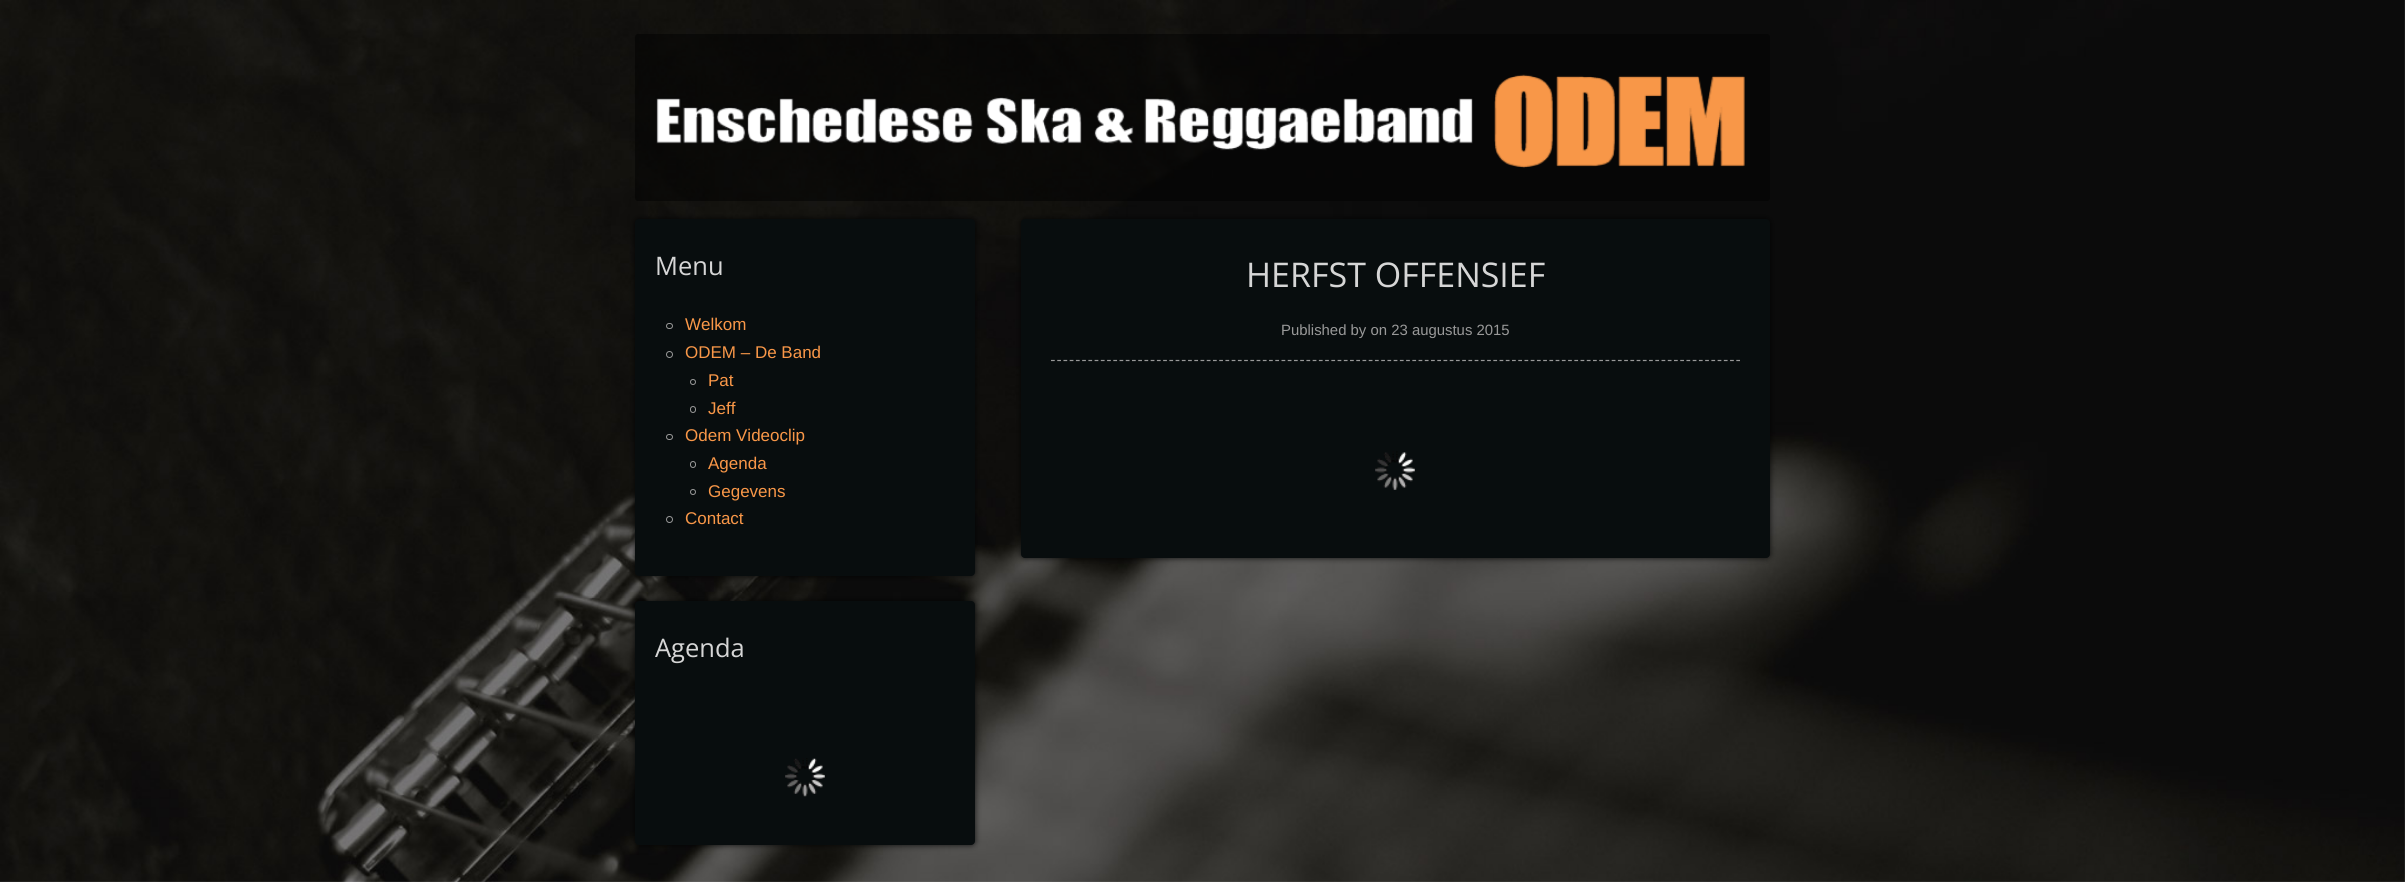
import math
import cairo


def round_path(ctx, x, y, w, h, r):
	ctx.new_sub_path()
	for i, (u, v) in enumerate([(x + w - r, y + h - r), (x + r, y + h - r), (x + r, y + r), (x + w - r, y + r)]):
		ctx.arc(u, v, r, i * math.pi / 2, (i + 1) * math.pi / 2)
	ctx.close_path()

def blur_box(ctx, x, y, w, h, r, blur, alpha):
	ctx.push_group_with_content(cairo.CONTENT_ALPHA)
	ctx.set_operator(cairo.OPERATOR_SOURCE)
	for i in range(15, -16, -2):
		e = blur * i / 6
		if min(w, h) + 2 * e > 0:
			ctx.set_source_rgba(0, 0, 0, alpha * math.erfc((i - 1) / 8.5) / 2)
			round_path(ctx, x - e, y - e, w + 2 * e, h + 2 * e, max(0, min(r + e + blur * .6, min(w, h) / 2 + e)))
			ctx.fill()
	ctx.mask(ctx.pop_group())

def paste(ctx, path, x, y, w, h):
	ctx.save()
	ctx.set_source_surface(cairo.ImageSurface.create_from_png(path), x, y)
	ctx.rectangle(x, y, w, h)
	ctx.fill()
	ctx.restore()

def draw(ctx):
	ctx.set_source_rgb(1, 1, 1)
	ctx.paint()
	paste(ctx, 'media/1.png', 0, 0, 2405, 882)
	paste(ctx, 'media/2.png', 635, 34, 1135, 167)
	ctx.set_source_rgb(0, 0, 0)
	blur_box(ctx, 635, 219, 340, 357, 4, 3, 0.8)
	ctx.set_source_rgb(0.035, 0.051, 0.055)
	round_path(ctx, 635, 219, 340, 357, 4)
	ctx.fill()
	ctx.select_font_face('Open Sans')
	ctx.set_font_size(25.5)
	ctx.set_source_rgb(0.839, 0.839, 0.839)
	ctx.move_to(655, 275)
	ctx.show_text('Menu')
	round_path(ctx, 666.5, 323.5, 6, 5, 2.5)
	ctx.set_source_rgb(0.6, 0.6, 0.6)
	ctx.set_line_width(1)
	ctx.stroke()
	ctx.select_font_face('Liberation Sans')
	ctx.set_font_size(17)
	ctx.set_source_rgb(0.973, 0.592, 0.282)
	ctx.move_to(685, 330)
	ctx.show_text('Welkom')
	ctx.new_path()
	ctx.arc(669.5, 354.5, 3, 0, 2 * math.pi)
	ctx.set_source_rgb(0.6, 0.6, 0.6)
	ctx.stroke()
	ctx.set_source_rgb(0.973, 0.592, 0.282)
	ctx.move_to(685, 358)
	ctx.show_text('ODEM – De Band')
	ctx.new_path()
	ctx.arc(693, 382, 2.5, 0, 2 * math.pi)
	ctx.set_source_rgb(0.6, 0.6, 0.6)
	ctx.stroke()
	ctx.set_source_rgb(0.973, 0.592, 0.282)
	ctx.move_to(708, 386)
	ctx.show_text('Pat')
	round_path(ctx, 690.5, 406.5, 5, 6, 2.5)
	ctx.set_source_rgb(0.6, 0.6, 0.6)
	ctx.stroke()
	ctx.set_source_rgb(0.973, 0.592, 0.282)
	ctx.move_to(708, 414)
	ctx.show_text('Jeff')
	round_path(ctx, 666.5, 434.5, 6, 5, 2.5)
	ctx.set_source_rgb(0.6, 0.6, 0.6)
	ctx.stroke()
	ctx.set_source_rgb(0.973, 0.592, 0.282)
	ctx.move_to(685, 441)
	ctx.show_text('Odem Videoclip')
	round_path(ctx, 690.5, 461.5, 5, 6, 2.5)
	ctx.set_source_rgb(0.6, 0.6, 0.6)
	ctx.stroke()
	ctx.set_source_rgb(0.973, 0.592, 0.282)
	ctx.move_to(708, 469)
	ctx.show_text('Agenda')
	ctx.new_path()
	ctx.arc(693, 492, 2.5, 0, 2 * math.pi)
	ctx.set_source_rgb(0.6, 0.6, 0.6)
	ctx.stroke()
	ctx.set_source_rgb(0.973, 0.592, 0.282)
	ctx.move_to(708, 497)
	ctx.show_text('Gegevens')
	ctx.new_path()
	ctx.arc(669.5, 519.5, 3, 0, 2 * math.pi)
	ctx.set_source_rgb(0.6, 0.6, 0.6)
	ctx.stroke()
	ctx.set_source_rgb(0.973, 0.592, 0.282)
	ctx.move_to(685, 524)
	ctx.show_text('Contact')
	ctx.set_source_rgb(0, 0, 0)
	blur_box(ctx, 1021, 219, 749, 339, 4, 3, 0.8)
	ctx.set_source_rgb(0.035, 0.051, 0.055)
	round_path(ctx, 1021, 219, 749, 339, 4)
	ctx.fill()
	ctx.select_font_face('Open Sans')
	ctx.set_font_size(34)
	ctx.set_source_rgb(0.839, 0.839, 0.839)
	ctx.move_to(1246, 287)
	ctx.show_text('HERFST OFFENSIEF')
	ctx.new_path()
	ctx.move_to(1051, 360.5)
	ctx.line_to(1740, 360.5)
	ctx.set_source_rgb(0.6, 0.6, 0.6)
	ctx.set_line_width(1.2)
	ctx.set_dash([3.75, 2.48])
	ctx.stroke()
	ctx.select_font_face('Liberation Sans')
	ctx.set_font_size(14.9)
	ctx.move_to(1281, 335)
	ctx.show_text('Published by on 23 augustus 2015')
	paste(ctx, 'media/3.png', 1375, 451, 40, 39)
	ctx.set_source_rgb(0, 0, 0)
	blur_box(ctx, 635, 601, 340, 244, 4, 3, 0.8)
	ctx.set_source_rgb(0.035, 0.051, 0.055)
	round_path(ctx, 635, 601, 340, 244, 4)
	ctx.fill()
	ctx.select_font_face('Open Sans')
	ctx.set_font_size(25.5)
	ctx.set_source_rgb(0.839, 0.839, 0.839)
	ctx.move_to(655, 657)
	ctx.show_text('Agenda')
	paste(ctx, 'media/4.png', 785, 758, 40, 39)


surface = cairo.ImageSurface(cairo.FORMAT_RGB24, 2405, 882)
ctx = cairo.Context(surface)
options = cairo.FontOptions()
options.set_hint_metrics(cairo.HINT_METRICS_OFF)
options.set_hint_style(cairo.HINT_STYLE_NONE)
ctx.set_font_options(options)
ctx.set_miter_limit(4)
draw(ctx)
surface.write_to_png('image.png')
